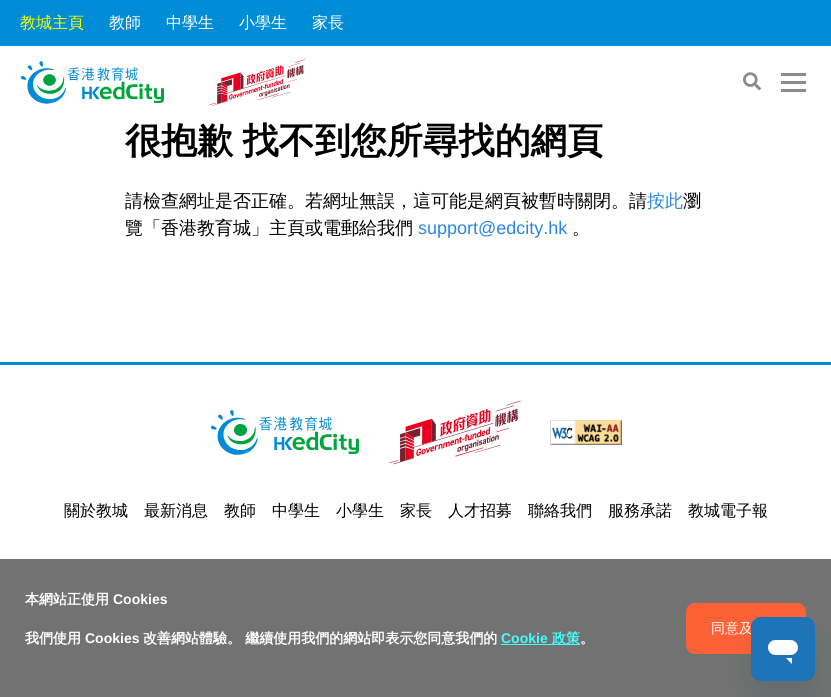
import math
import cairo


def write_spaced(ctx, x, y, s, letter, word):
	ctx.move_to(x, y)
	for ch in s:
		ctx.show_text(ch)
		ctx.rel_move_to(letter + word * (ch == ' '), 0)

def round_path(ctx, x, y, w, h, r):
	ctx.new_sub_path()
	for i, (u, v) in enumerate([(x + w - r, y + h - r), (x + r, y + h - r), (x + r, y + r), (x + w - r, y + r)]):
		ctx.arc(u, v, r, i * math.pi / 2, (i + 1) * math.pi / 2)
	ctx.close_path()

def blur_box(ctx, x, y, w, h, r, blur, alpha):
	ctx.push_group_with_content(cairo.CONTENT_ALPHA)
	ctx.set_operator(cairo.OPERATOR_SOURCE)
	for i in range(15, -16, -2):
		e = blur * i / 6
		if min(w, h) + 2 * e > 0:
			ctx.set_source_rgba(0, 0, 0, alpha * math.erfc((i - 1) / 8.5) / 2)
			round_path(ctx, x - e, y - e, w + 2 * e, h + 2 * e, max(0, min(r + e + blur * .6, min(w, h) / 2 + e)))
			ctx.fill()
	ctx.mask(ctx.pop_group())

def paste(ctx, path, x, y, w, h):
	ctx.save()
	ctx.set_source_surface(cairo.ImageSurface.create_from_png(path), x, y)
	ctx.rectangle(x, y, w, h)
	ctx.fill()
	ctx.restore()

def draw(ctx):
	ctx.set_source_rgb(1, 1, 1)
	ctx.paint()
	ctx.set_source_rgb(0, 0.549, 0.839)
	ctx.rectangle(0, 0, 831, 46)
	ctx.fill()
	ctx.select_font_face('WenQuanYi Zen Hei Medium')
	ctx.set_font_size(16)
	ctx.set_source_rgb(0.98, 1, 0)
	ctx.move_to(20, 28)
	ctx.show_text('教城主頁')
	ctx.set_source_rgb(1, 1, 1)
	for x, y, s in [
		(109, 28, '教師'),
		(166, 28, '中學生'),
		(239, 28, '小學生'),
		(312, 28, '家長'),
	]:
		ctx.move_to(x, y)
		ctx.show_text(s)
	paste(ctx, 'media/1.png', 21, 61, 143, 43)
	paste(ctx, 'media/2.png', 209, 59, 97, 47)
	paste(ctx, 'media/3.png', 743, 72, 18, 19)
	ctx.set_source_rgb(0.545, 0.545, 0.545)
	ctx.rectangle(781, 73, 25, 3)
	ctx.rectangle(781, 81, 25, 3)
	ctx.rectangle(781, 89, 25, 3)
	ctx.fill()
	ctx.select_font_face('WenQuanYi Zen Hei', cairo.FONT_SLANT_NORMAL, cairo.FONT_WEIGHT_BOLD)
	ctx.set_font_size(36)
	ctx.set_source_rgb(0, 0, 0)
	write_spaced(ctx, 125, 153, '很抱歉 找不到您所尋找的網頁', 0, -1)
	ctx.select_font_face('WenQuanYi Zen Hei Medium')
	ctx.set_font_size(18)
	ctx.move_to(125, 207)
	ctx.show_text('請檢查網址是否正確。若網址無誤，這可能是網頁被暫時關閉。請')
	ctx.set_source_rgb(0.165, 0.522, 0.91)
	ctx.move_to(647, 207)
	ctx.show_text('按此')
	ctx.set_source_rgb(0, 0, 0)
	ctx.move_to(683, 207)
	ctx.show_text('瀏')
	ctx.move_to(125, 234)
	ctx.show_text('覽「香港教育城」主頁或電郵給我們')
	ctx.select_font_face('Liberation Sans')
	ctx.set_source_rgb(0.165, 0.522, 0.91)
	ctx.move_to(418, 234)
	ctx.show_text('support@edcity.hk')
	ctx.select_font_face('WenQuanYi Zen Hei Medium')
	ctx.set_source_rgb(0, 0, 0)
	ctx.move_to(572, 234)
	ctx.show_text('。')
	ctx.set_source_rgb(0, 0.549, 0.839)
	ctx.rectangle(0, 362, 831, 3)
	ctx.fill()
	paste(ctx, 'media/4.png', 211, 410, 148, 45)
	paste(ctx, 'media/5.png', 389, 400, 132, 65)
	paste(ctx, 'media/6.png', 550, 420, 72, 25)
	ctx.set_font_size(16)
	ctx.set_source_rgb(0, 0, 0)
	for x, y, s in [
		(64, 516, '關於教城'),
		(144, 516, '最新消息'),
		(224, 516, '教師'),
		(272, 516, '中學生'),
		(336, 516, '小學生'),
		(400, 516, '家長'),
		(448, 516, '人才招募'),
		(528, 516, '聯絡我們'),
		(608, 516, '服務承諾'),
		(688, 516, '教城電子報'),
	]:
		ctx.move_to(x, y)
		ctx.show_text(s)
	ctx.set_source_rgb(0.447, 0.447, 0.447)
	ctx.rectangle(0, 559, 831, 138)
	ctx.fill()
	ctx.select_font_face('WenQuanYi Zen Hei', cairo.FONT_SLANT_NORMAL, cairo.FONT_WEIGHT_BOLD)
	ctx.set_font_size(14)
	ctx.set_source_rgb(1, 1, 1)
	ctx.move_to(25, 604)
	ctx.show_text('本網站正使用')
	ctx.select_font_face('Liberation Sans', cairo.FONT_SLANT_NORMAL, cairo.FONT_WEIGHT_BOLD)
	ctx.move_to(113, 604)
	ctx.show_text('Cookies')
	ctx.select_font_face('WenQuanYi Zen Hei', cairo.FONT_SLANT_NORMAL, cairo.FONT_WEIGHT_BOLD)
	ctx.move_to(25, 643)
	ctx.show_text('我們使用')
	ctx.select_font_face('Liberation Sans', cairo.FONT_SLANT_NORMAL, cairo.FONT_WEIGHT_BOLD)
	ctx.move_to(85, 643)
	ctx.show_text('Cookies')
	ctx.select_font_face('WenQuanYi Zen Hei', cairo.FONT_SLANT_NORMAL, cairo.FONT_WEIGHT_BOLD)
	ctx.move_to(143, 643)
	ctx.show_text('改善網站體驗。 繼續使用我們的網站即表示您同意我們的')
	ctx.select_font_face('Liberation Sans', cairo.FONT_SLANT_NORMAL, cairo.FONT_WEIGHT_BOLD)
	ctx.set_source_rgb(0.255, 0.996, 1)
	ctx.move_to(501, 643)
	ctx.show_text('Cookie')
	ctx.rectangle(501, 644, 79, 1)
	ctx.fill()
	ctx.select_font_face('WenQuanYi Zen Hei', cairo.FONT_SLANT_NORMAL, cairo.FONT_WEIGHT_BOLD)
	ctx.move_to(552, 643)
	ctx.show_text('政策')
	ctx.set_source_rgb(1, 1, 1)
	ctx.move_to(580, 643)
	ctx.show_text('。')
	ctx.set_source_rgb(1, 0.38, 0.216)
	round_path(ctx, 686, 603, 120, 51, 9)
	ctx.fill()
	ctx.select_font_face('WenQuanYi Zen Hei Medium')
	ctx.set_source_rgb(1, 1, 1)
	ctx.move_to(711, 633)
	ctx.show_text('同意及')
	ctx.set_source_rgb(0.09, 0.286, 0.302)
	blur_box(ctx, 751, 637, 64, 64, 10, 15, 0.15)
	paste(ctx, 'media/7.png', 751, 617, 64, 64)


surface = cairo.ImageSurface(cairo.FORMAT_RGB24, 831, 697)
ctx = cairo.Context(surface)
options = cairo.FontOptions()
options.set_hint_metrics(cairo.HINT_METRICS_OFF)
options.set_hint_style(cairo.HINT_STYLE_NONE)
ctx.set_font_options(options)
ctx.set_miter_limit(4)
draw(ctx)
surface.write_to_png('image.png')
